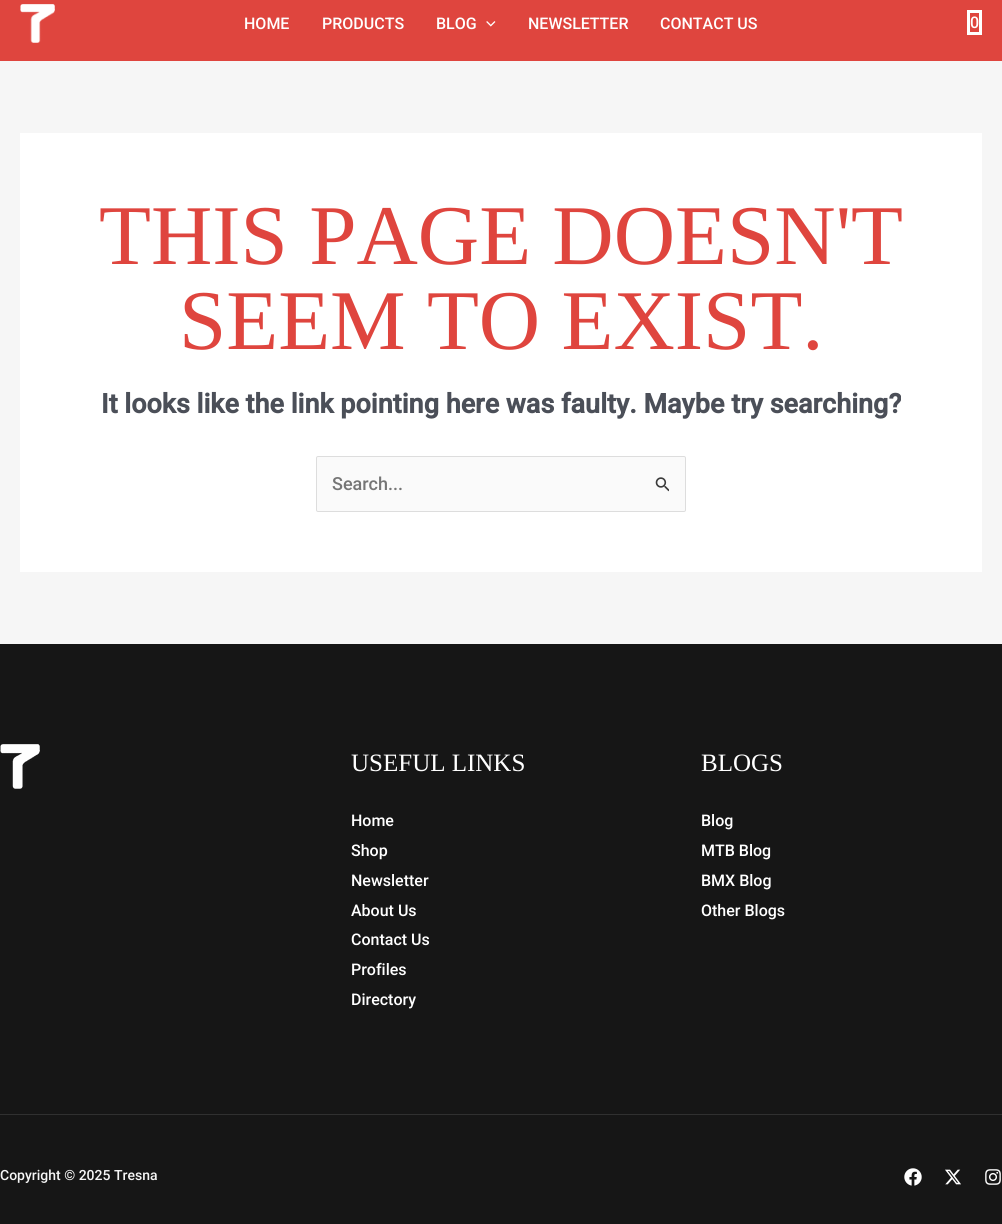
import math
import cairo


def round_path(ctx, x, y, w, h, r):
	ctx.new_sub_path()
	for i, (u, v) in enumerate([(x + w - r, y + h - r), (x + r, y + h - r), (x + r, y + r), (x + w - r, y + r)]):
		ctx.arc(u, v, r, i * math.pi / 2, (i + 1) * math.pi / 2)
	ctx.close_path()

def paste(ctx, path, x, y, w, h):
	ctx.save()
	ctx.set_source_surface(cairo.ImageSurface.create_from_png(path), x, y)
	ctx.rectangle(x, y, w, h)
	ctx.fill()
	ctx.restore()

def draw(ctx):
	ctx.set_source_rgb(0.961, 0.961, 0.961)
	ctx.paint()
	ctx.set_source_rgb(0.875, 0.271, 0.243)
	ctx.rectangle(0, 0, 1002, 61)
	ctx.fill()
	paste(ctx, 'media/1.png', 20, 4, 35, 39)
	ctx.select_font_face('Roboto Medium')
	ctx.set_font_size(16)
	ctx.set_source_rgb(1, 1, 1)
	for x, y, s in [
		(244, 29, 'HOME'),
		(322, 29, 'PRODUCTS'),
		(436, 29, 'BLOG'),
	]:
		ctx.move_to(x, y)
		ctx.show_text(s)
	paste(ctx, 'media/2.png', 486, 21, 10, 6)
	ctx.move_to(528, 29)
	ctx.show_text('NEWSLETTER')
	ctx.move_to(660, 29)
	ctx.show_text('CONTACT US')
	ctx.rectangle(968.5, 11.5, 12, 22)
	ctx.set_line_width(3)
	ctx.stroke()
	ctx.move_to(970, 28)
	ctx.show_text('0')
	ctx.rectangle(20, 133, 962, 439)
	ctx.fill()
	ctx.select_font_face('Liberation Serif')
	ctx.set_font_size(85)
	ctx.set_source_rgb(0.875, 0.271, 0.243)
	ctx.move_to(99, 264)
	ctx.show_text('THIS PAGE DOESN\'T')
	ctx.move_to(179, 349)
	ctx.show_text('SEEM TO EXIST.')
	ctx.select_font_face('Roboto', cairo.FONT_SLANT_NORMAL, cairo.FONT_WEIGHT_BOLD)
	ctx.set_font_size(27)
	ctx.set_source_rgb(0.294, 0.31, 0.345)
	ctx.move_to(101, 413)
	ctx.show_text('It looks like the link pointing here was faulty. Maybe try searching?')
	ctx.set_source_rgb(0.98, 0.98, 0.98)
	round_path(ctx, 316.5, 456.5, 369, 55, 1.5)
	ctx.fill_preserve()
	ctx.set_source_rgb(0.867, 0.867, 0.867)
	ctx.set_line_width(1)
	ctx.stroke()
	ctx.select_font_face('Roboto Medium')
	ctx.set_font_size(18)
	ctx.set_source_rgb(0.459, 0.459, 0.459)
	ctx.move_to(332, 490)
	ctx.show_text('Search...')
	paste(ctx, 'media/3.png', 655, 477, 14, 15)
	ctx.set_source_rgb(0.086, 0.086, 0.086)
	ctx.rectangle(0, 644, 1002, 470)
	ctx.fill()
	paste(ctx, 'media/4.png', 0, 744, 40, 45)
	ctx.select_font_face('Liberation Serif')
	ctx.set_font_size(25)
	ctx.set_source_rgb(1, 1, 1)
	ctx.move_to(351, 771)
	ctx.show_text('USEFUL LINKS')
	ctx.select_font_face('Roboto Medium')
	ctx.set_font_size(16)
	for x, y, s in [
		(351, 826, 'Home'),
		(351, 856, 'Shop'),
		(351, 886, 'Newsletter'),
		(351, 916, 'About Us'),
		(351, 945, 'Contact Us'),
		(351, 975, 'Profiles'),
		(351, 1005, 'Directory'),
	]:
		ctx.move_to(x, y)
		ctx.show_text(s)
	ctx.select_font_face('Liberation Serif')
	ctx.set_font_size(25)
	ctx.move_to(701, 771)
	ctx.show_text('BLOGS')
	ctx.select_font_face('Roboto Medium')
	ctx.set_font_size(16)
	for x, y, s in [
		(701, 826, 'Blog'),
		(701, 856, 'MTB Blog'),
		(701, 886, 'BMX Blog'),
		(701, 916, 'Other Blogs'),
	]:
		ctx.move_to(x, y)
		ctx.show_text(s)
	ctx.set_source_rgb(0.086, 0.086, 0.086)
	ctx.rectangle(0, 1115, 1002, 109)
	ctx.fill()
	ctx.set_source_rgb(0.188, 0.188, 0.188)
	ctx.rectangle(0, 1114, 1002, 1)
	ctx.fill()
	ctx.set_font_size(14)
	ctx.set_source_rgb(0.961, 0.961, 0.961)
	ctx.move_to(0, 1180)
	ctx.show_text('Copyright © 2025 Tresna')
	paste(ctx, 'media/5.png', 904, 1168, 18, 18)
	paste(ctx, 'media/6.png', 945, 1169, 16, 16)
	paste(ctx, 'media/7.png', 985, 1169, 16, 16)


surface = cairo.ImageSurface(cairo.FORMAT_RGB24, 1002, 1224)
ctx = cairo.Context(surface)
options = cairo.FontOptions()
options.set_hint_metrics(cairo.HINT_METRICS_OFF)
options.set_hint_style(cairo.HINT_STYLE_NONE)
ctx.set_font_options(options)
ctx.set_miter_limit(4)
draw(ctx)
surface.write_to_png('image.png')
